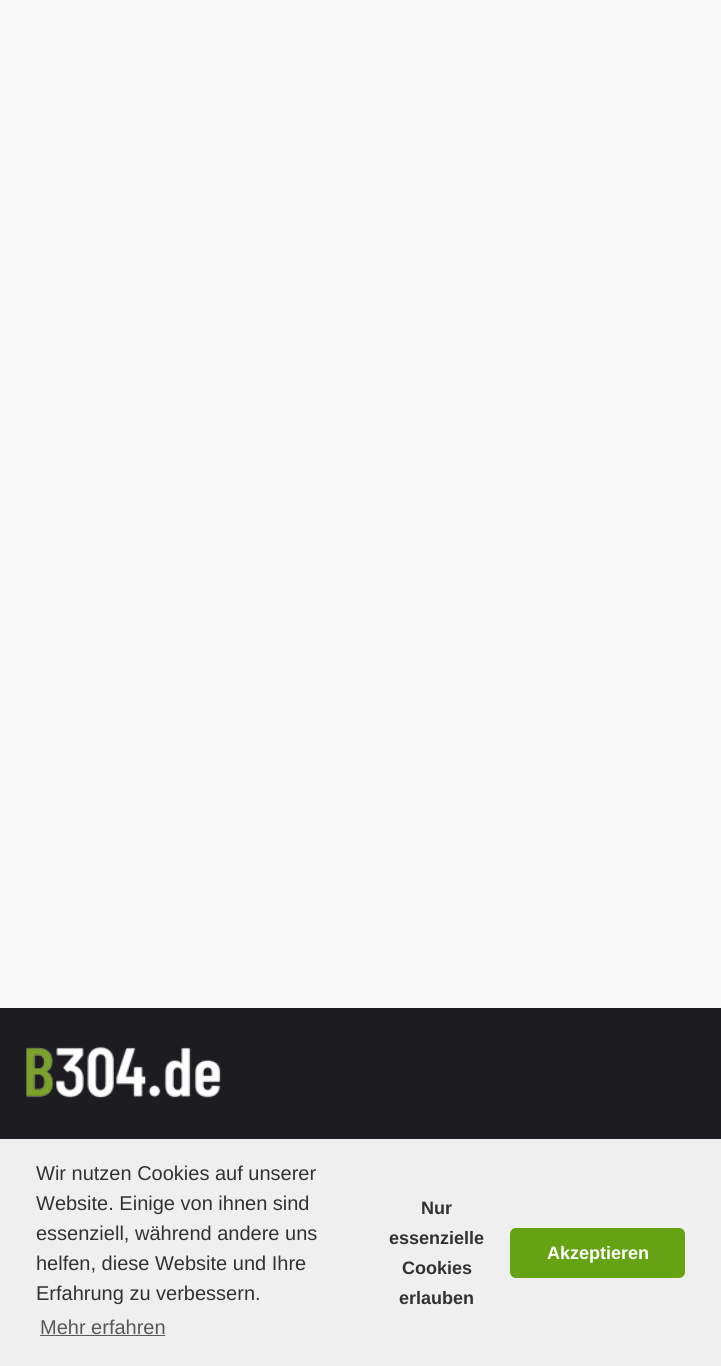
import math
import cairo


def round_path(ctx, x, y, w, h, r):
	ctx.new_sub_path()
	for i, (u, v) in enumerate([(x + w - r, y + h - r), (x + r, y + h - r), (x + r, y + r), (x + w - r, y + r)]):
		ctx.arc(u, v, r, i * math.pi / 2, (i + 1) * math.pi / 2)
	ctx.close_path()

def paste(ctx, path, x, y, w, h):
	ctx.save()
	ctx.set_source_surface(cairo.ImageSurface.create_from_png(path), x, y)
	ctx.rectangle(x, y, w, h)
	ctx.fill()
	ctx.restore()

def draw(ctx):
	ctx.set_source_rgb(0.969, 0.969, 0.969)
	ctx.paint()
	ctx.set_source_rgb(0.11, 0.11, 0.129)
	ctx.rectangle(0, 1008, 721, 131)
	ctx.fill()
	paste(ctx, 'media/1.png', 26, 1046, 195, 52)
	ctx.set_source_rgb(0.937, 0.937, 0.937)
	ctx.rectangle(0, 1139, 721, 227)
	ctx.fill()
	ctx.select_font_face('Liberation Sans')
	ctx.set_font_size(20)
	ctx.set_source_rgb(0.2, 0.196, 0.196)
	for x, y, s in [
		(36, 1180, 'Wir nutzen Cookies auf unserer'),
		(36, 1210, 'Website. Einige von ihnen sind'),
		(36, 1240, 'essenziell, während andere uns'),
		(36, 1270, 'helfen, diese Website und Ihre'),
		(36, 1300, 'Erfahrung zu verbessern.'),
	]:
		ctx.move_to(x, y)
		ctx.show_text(s)
	ctx.set_source_rgb(0.349, 0.345, 0.345)
	ctx.move_to(40, 1334)
	ctx.show_text('Mehr erfahren')
	ctx.rectangle(40, 1335, 125, 1)
	ctx.fill()
	ctx.select_font_face('Liberation Sans', cairo.FONT_SLANT_NORMAL, cairo.FONT_WEIGHT_BOLD)
	ctx.set_font_size(18)
	ctx.set_source_rgb(0.2, 0.196, 0.196)
	for x, y, s in [
		(421, 1214, 'Nur'),
		(389, 1244, 'essenzielle'),
		(402, 1274, 'Cookies'),
		(399, 1304, 'erlauben'),
	]:
		ctx.move_to(x, y)
		ctx.show_text(s)
	ctx.set_source_rgb(0.396, 0.639, 0.071)
	round_path(ctx, 510, 1228, 175, 50, 6)
	ctx.fill()
	ctx.set_source_rgb(1, 1, 1)
	ctx.move_to(547, 1259)
	ctx.show_text('Akzeptieren')


surface = cairo.ImageSurface(cairo.FORMAT_RGB24, 721, 1366)
ctx = cairo.Context(surface)
options = cairo.FontOptions()
options.set_hint_metrics(cairo.HINT_METRICS_OFF)
options.set_hint_style(cairo.HINT_STYLE_NONE)
ctx.set_font_options(options)
ctx.set_miter_limit(4)
draw(ctx)
surface.write_to_png('image.png')
